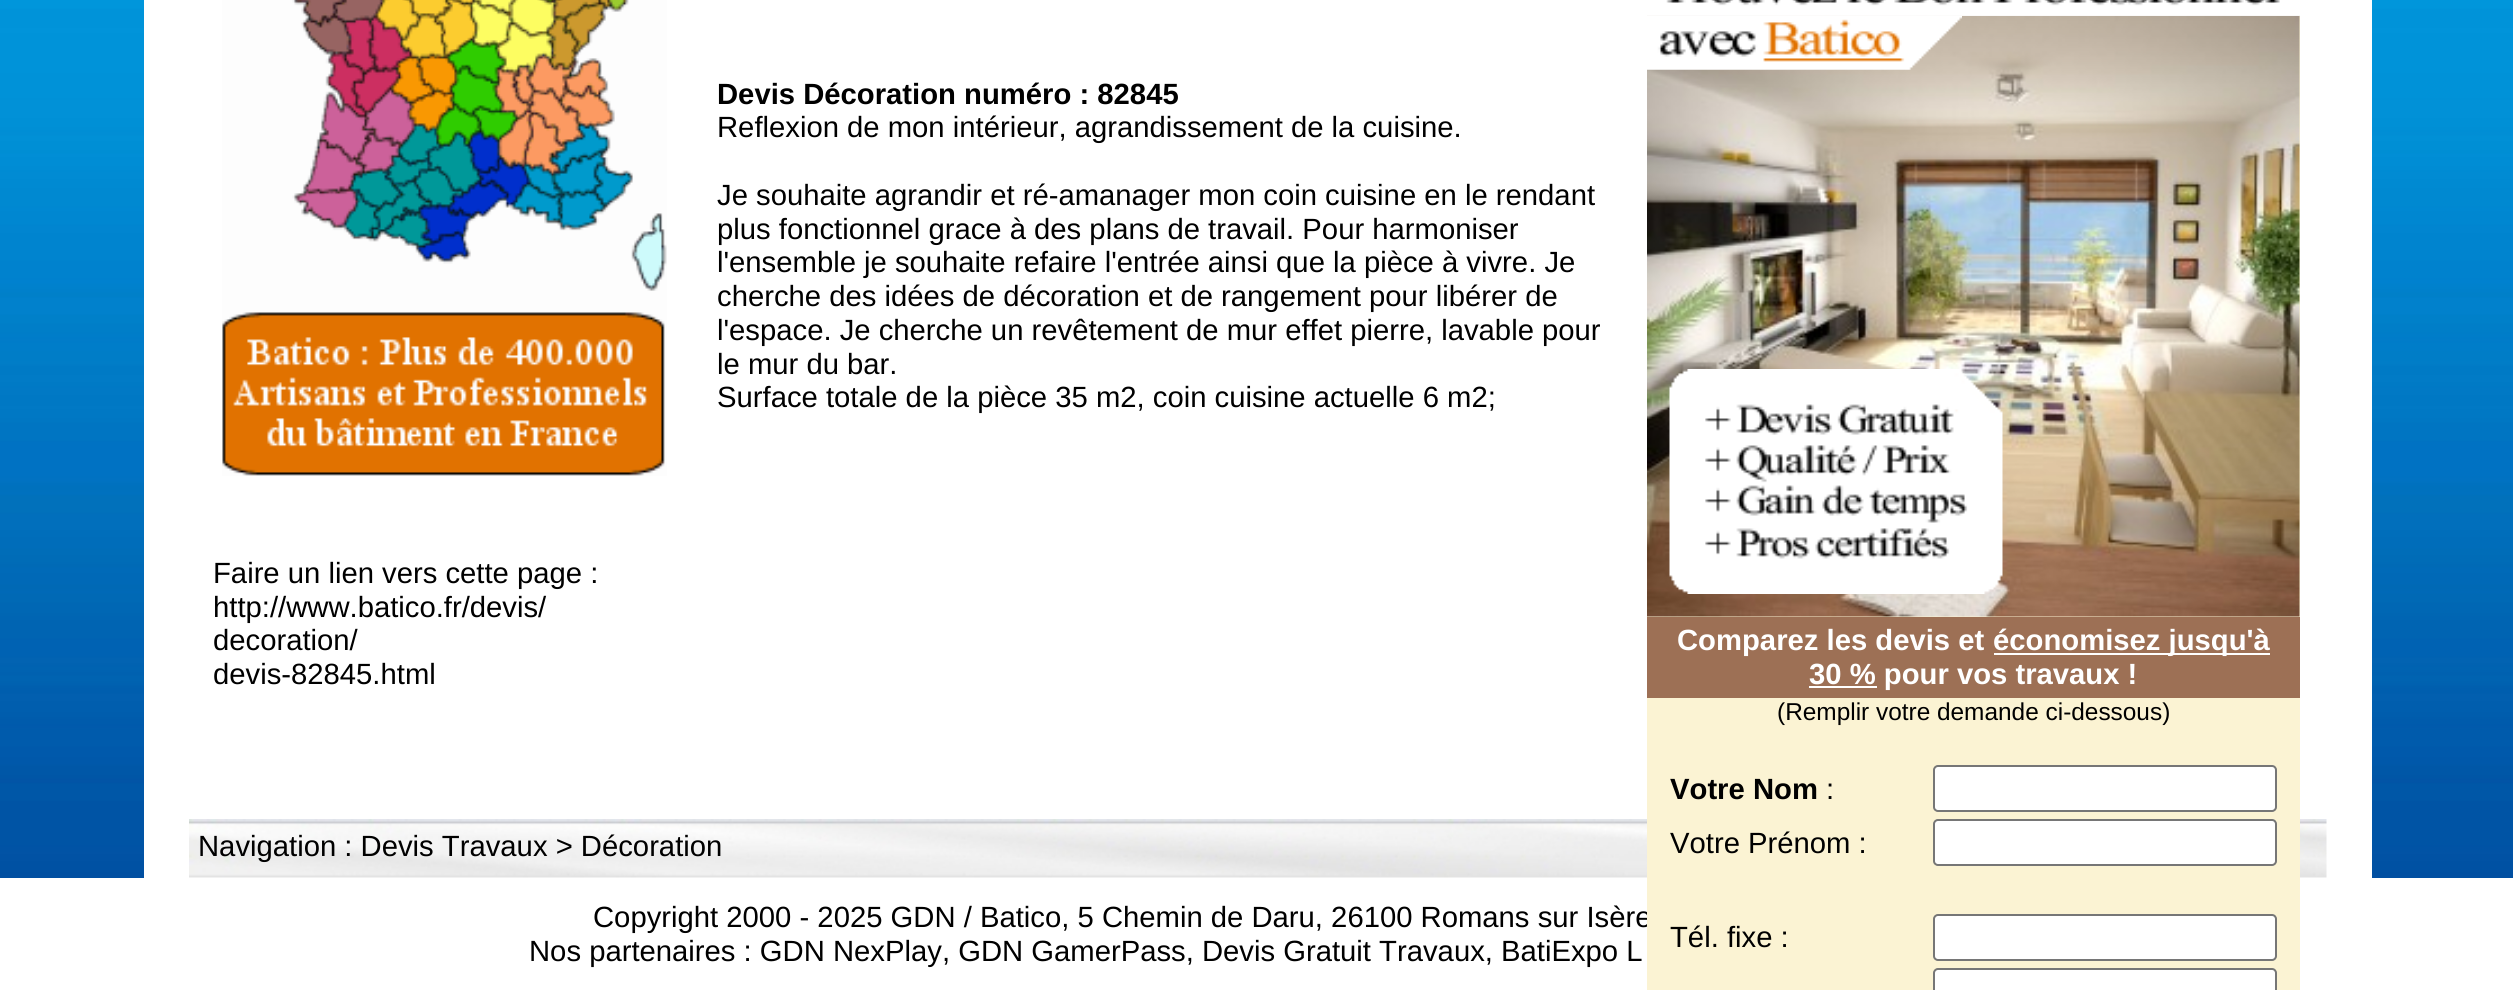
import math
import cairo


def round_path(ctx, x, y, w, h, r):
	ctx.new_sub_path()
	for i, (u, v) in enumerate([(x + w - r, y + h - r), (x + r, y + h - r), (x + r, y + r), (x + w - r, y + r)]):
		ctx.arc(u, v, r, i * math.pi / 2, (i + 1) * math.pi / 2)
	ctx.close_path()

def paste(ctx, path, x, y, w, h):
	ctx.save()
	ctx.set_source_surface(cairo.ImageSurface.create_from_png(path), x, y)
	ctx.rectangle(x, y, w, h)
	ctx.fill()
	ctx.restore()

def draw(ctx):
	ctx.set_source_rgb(1, 1, 1)
	ctx.paint()
	paste(ctx, 'media/1.png', 0, 0, 2513, 878)
	ctx.set_source_rgb(1, 1, 1)
	ctx.rectangle(144, 0, 2228, 878)
	ctx.fill()
	ctx.select_font_face('Liberation Sans', cairo.FONT_SLANT_NORMAL, cairo.FONT_WEIGHT_BOLD)
	ctx.set_font_size(29.25)
	ctx.set_source_rgb(0, 0, 0)
	ctx.move_to(717, 104)
	ctx.show_text('Devis Décoration numéro : 82845')
	ctx.select_font_face('Liberation Sans')
	for x, y, s in [
		(717, 137, 'Reflexion de mon intérieur, agrandissement de la cuisine.'),
		(717, 205, 'Je souhaite agrandir et ré-amanager mon coin cuisine en le rendant'),
		(717, 239, 'plus fonctionnel grace à des plans de travail. Pour harmoniser'),
		(717, 272, 'l\'ensemble je souhaite refaire l\'entrée ainsi que la pièce à vivre. Je'),
		(717, 306, 'cherche des idées de décoration et de rangement pour libérer de'),
		(717, 340, 'l\'espace. Je cherche un revêtement de mur effet pierre, lavable pour'),
		(717, 374, 'le mur du bar.'),
		(717, 407, 'Surface totale de la pièce 35 m2, coin cuisine actuelle 6 m2;'),
	]:
		ctx.move_to(x, y)
		ctx.show_text(s)
	paste(ctx, 'media/2.png', 222, 0, 445, 476)
	for x, y, s in [
		(213, 583, 'Faire un lien vers cette page :'),
		(213, 617, 'http://www.batico.fr/devis/'),
		(213, 650, 'decoration/'),
		(213, 684, 'devis-82845.html'),
	]:
		ctx.move_to(x, y)
		ctx.show_text(s)
	paste(ctx, 'media/7.png', 189, 819, 2138, 59)
	ctx.move_to(593, 927)
	ctx.show_text('Copyright 2000 - 2025 GDN / Batico, 5 Chemin de Daru, 26100 Romans sur Isère')
	ctx.set_source_rgb(0.984, 0.953, 0.827)
	ctx.rectangle(1647, 16, 653, 974)
	ctx.fill()
	paste(ctx, 'media/4.png', 1647, 15, 653, 602)
	paste(ctx, 'media/5.png', 1647, 15, 315, 55)
	paste(ctx, 'media/3.png', 1647, 0, 653, 16)
	paste(ctx, 'media/6.png', 1669, 369, 334, 225)
	ctx.set_source_rgb(0.616, 0.439, 0.333)
	ctx.rectangle(1647, 617, 653, 81)
	ctx.fill()
	ctx.select_font_face('Liberation Sans', cairo.FONT_SLANT_NORMAL, cairo.FONT_WEIGHT_BOLD)
	ctx.set_source_rgb(1, 1, 1)
	ctx.move_to(1677, 650)
	ctx.show_text('Comparez les devis et')
	ctx.rectangle(1994, 653, 276, 2)
	ctx.fill()
	ctx.move_to(1993, 650)
	ctx.show_text('économisez jusqu\'à')
	ctx.rectangle(1809, 686, 68, 2)
	ctx.fill()
	ctx.move_to(1809, 684)
	ctx.show_text('30 % pour vos travaux !')
	ctx.select_font_face('Liberation Sans')
	ctx.set_font_size(24.4)
	ctx.set_source_rgb(0, 0, 0)
	ctx.move_to(1777, 720)
	ctx.show_text('(Remplir votre demande ci-dessous)')
	ctx.select_font_face('Liberation Sans', cairo.FONT_SLANT_NORMAL, cairo.FONT_WEIGHT_BOLD)
	ctx.set_font_size(29.25)
	ctx.move_to(1670, 799)
	ctx.show_text('Votre Nom')
	ctx.select_font_face('Liberation Sans')
	ctx.move_to(1826, 799)
	ctx.show_text(':')
	ctx.set_source_rgb(1, 1, 1)
	round_path(ctx, 1934, 766, 342, 45, 4)
	ctx.fill_preserve()
	ctx.set_source_rgb(0.463, 0.463, 0.463)
	ctx.stroke()
	ctx.set_source_rgb(0, 0, 0)
	ctx.move_to(1670, 853)
	ctx.show_text('Votre Prénom :')
	ctx.set_source_rgb(1, 1, 1)
	round_path(ctx, 1934, 820, 342, 45, 4)
	ctx.fill_preserve()
	ctx.set_source_rgb(0.463, 0.463, 0.463)
	ctx.stroke()
	ctx.set_source_rgb(0, 0, 0)
	ctx.move_to(1670, 947)
	ctx.show_text('Tél. fixe :')
	ctx.set_source_rgb(1, 1, 1)
	round_path(ctx, 1934, 915, 342, 45, 4)
	ctx.fill_preserve()
	ctx.set_source_rgb(0.463, 0.463, 0.463)
	ctx.stroke()
	ctx.set_source_rgb(1, 1, 1)
	round_path(ctx, 1934, 969, 342, 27, 4)
	ctx.fill_preserve()
	ctx.set_source_rgb(0.463, 0.463, 0.463)
	ctx.stroke()
	ctx.set_source_rgb(0, 0, 0)
	ctx.move_to(198, 856)
	ctx.show_text('Navigation : Devis Travaux > Décoration')
	ctx.move_to(529, 961)
	ctx.show_text('Nos partenaires : GDN NexPlay, GDN GamerPass, Devis Gratuit Travaux, BatiExpo L')


surface = cairo.ImageSurface(cairo.FORMAT_RGB24, 2513, 990)
ctx = cairo.Context(surface)
options = cairo.FontOptions()
options.set_hint_metrics(cairo.HINT_METRICS_OFF)
options.set_hint_style(cairo.HINT_STYLE_NONE)
ctx.set_font_options(options)
ctx.set_miter_limit(4)
draw(ctx)
surface.write_to_png('image.png')
